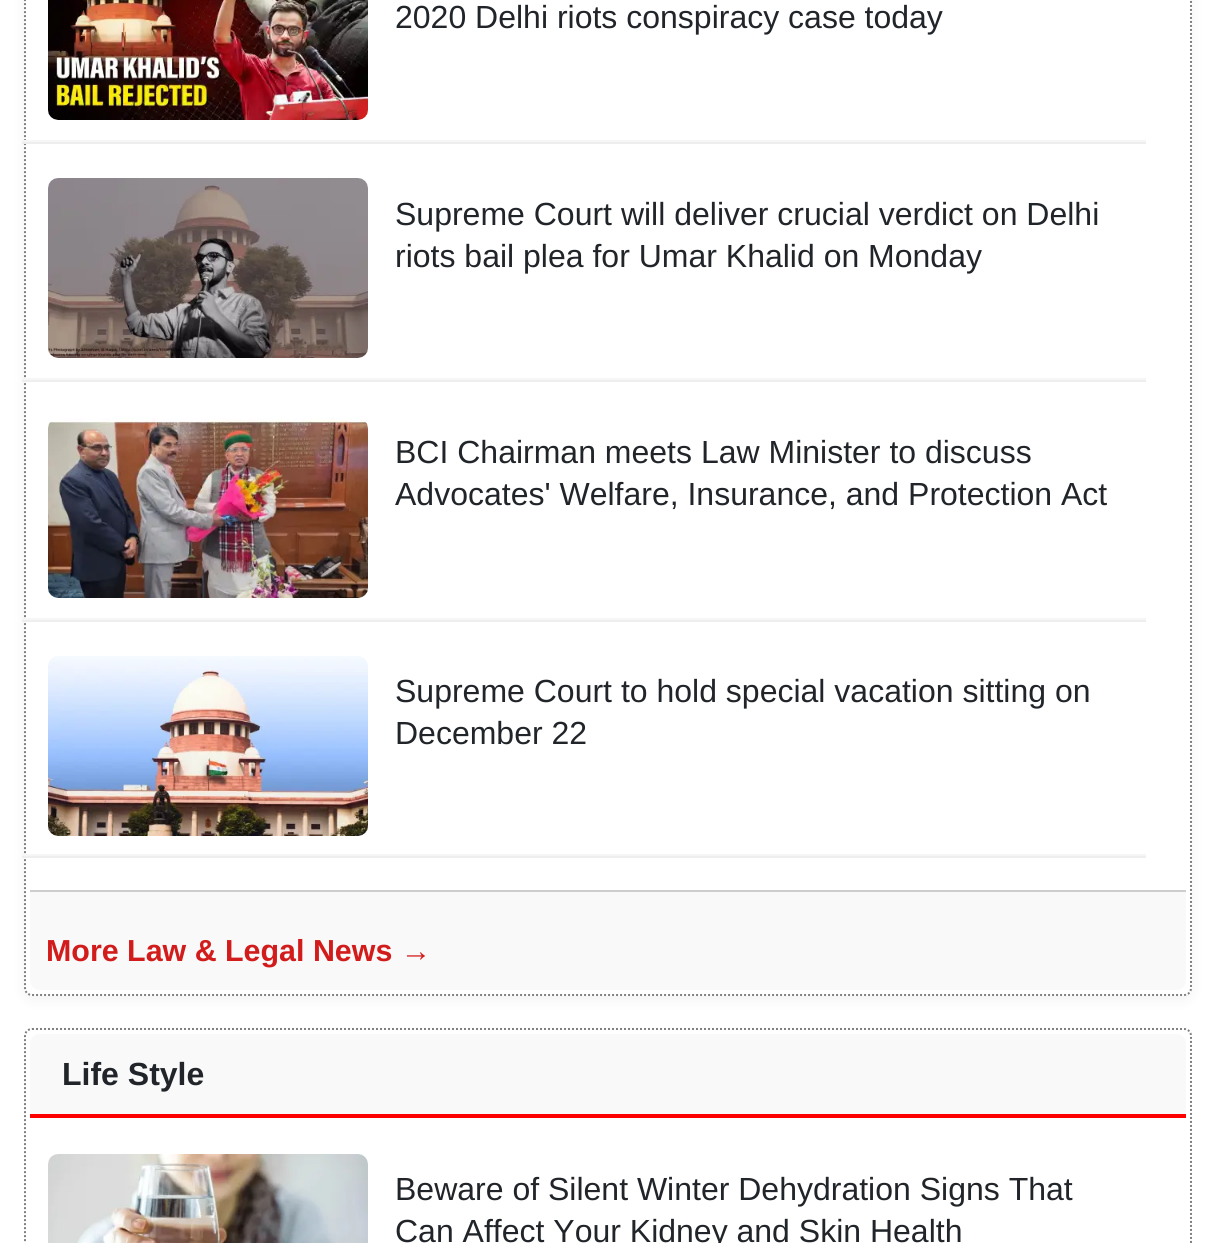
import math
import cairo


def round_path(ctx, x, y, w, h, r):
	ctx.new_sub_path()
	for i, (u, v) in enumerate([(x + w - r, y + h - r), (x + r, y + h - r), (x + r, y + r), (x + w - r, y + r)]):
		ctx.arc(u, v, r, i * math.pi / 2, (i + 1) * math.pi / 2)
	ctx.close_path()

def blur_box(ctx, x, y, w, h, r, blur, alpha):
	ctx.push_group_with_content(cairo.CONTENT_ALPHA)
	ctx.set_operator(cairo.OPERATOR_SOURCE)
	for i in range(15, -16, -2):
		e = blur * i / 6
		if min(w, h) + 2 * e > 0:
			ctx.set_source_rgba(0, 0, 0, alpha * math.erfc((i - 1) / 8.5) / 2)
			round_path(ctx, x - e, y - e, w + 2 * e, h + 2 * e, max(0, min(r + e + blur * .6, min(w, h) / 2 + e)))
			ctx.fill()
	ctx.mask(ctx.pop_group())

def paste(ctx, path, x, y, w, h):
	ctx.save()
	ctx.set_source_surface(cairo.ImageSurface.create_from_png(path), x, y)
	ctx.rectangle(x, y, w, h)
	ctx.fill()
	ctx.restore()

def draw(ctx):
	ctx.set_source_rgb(1, 1, 1)
	ctx.paint()
	ctx.set_source_rgb(0, 0, 0)
	blur_box(ctx, 24, -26, 1168, 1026, 8, 6, 0.05)
	ctx.set_source_rgb(1, 1, 1)
	round_path(ctx, 24, -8, 1168, 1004, 8)
	ctx.fill()
	ctx.new_path()
	ctx.move_to(32, -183)
	ctx.line_to(1184, -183)
	ctx.curve_to(1188, -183, 1191, -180, 1191, -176)
	ctx.line_to(1191, 988)
	ctx.curve_to(1191, 992, 1188, 995, 1184, 995)
	ctx.line_to(32, 995)
	ctx.curve_to(28, 995, 25, 992, 25, 988)
	ctx.line_to(25, -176)
	ctx.curve_to(25, -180, 28, -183, 32, -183)
	ctx.close_path()
	ctx.set_source_rgb(0.502, 0.502, 0.502)
	ctx.set_dash([2, 2])
	ctx.stroke()
	ctx.set_source_rgb(0.933, 0.933, 0.933)
	ctx.rectangle(22, 142, 1124, 2)
	ctx.fill()
	ctx.set_source_rgb(0.961, 0.961, 0.961)
	ctx.rectangle(22, 140, 1124, 2)
	ctx.fill()
	paste(ctx, 'media/1.png', 48, 0, 320, 120)
	ctx.select_font_face('Liberation Sans')
	ctx.set_font_size(32)
	ctx.set_source_rgb(0.129, 0.145, 0.161)
	ctx.move_to(395, 28)
	ctx.show_text('2020 Delhi riots conspiracy case today')
	ctx.set_source_rgb(0.933, 0.933, 0.933)
	ctx.rectangle(22, 380, 1124, 2)
	ctx.fill()
	ctx.set_source_rgb(0.961, 0.961, 0.961)
	ctx.rectangle(22, 378, 1124, 2)
	ctx.fill()
	paste(ctx, 'media/2.png', 48, 178, 320, 180)
	ctx.set_source_rgb(0.129, 0.145, 0.161)
	ctx.move_to(395, 225)
	ctx.show_text('Supreme Court will deliver crucial verdict on Delhi')
	ctx.move_to(395, 267)
	ctx.show_text('riots bail plea for Umar Khalid on Monday')
	ctx.set_source_rgb(0.933, 0.933, 0.933)
	ctx.rectangle(22, 620, 1124, 2)
	ctx.fill()
	ctx.set_source_rgb(0.961, 0.961, 0.961)
	ctx.rectangle(22, 618, 1124, 2)
	ctx.fill()
	paste(ctx, 'media/3.png', 48, 418, 320, 180)
	ctx.set_source_rgb(0.129, 0.145, 0.161)
	ctx.move_to(395, 463)
	ctx.show_text('BCI Chairman meets Law Minister to discuss')
	ctx.move_to(395, 505)
	ctx.show_text('Advocates\' Welfare, Insurance, and Protection Act')
	ctx.set_source_rgb(0.933, 0.933, 0.933)
	ctx.rectangle(22, 856, 1124, 2)
	ctx.fill()
	ctx.set_source_rgb(0.961, 0.961, 0.961)
	ctx.rectangle(22, 854, 1124, 2)
	ctx.fill()
	paste(ctx, 'media/4.png', 48, 656, 320, 180)
	ctx.set_source_rgb(0.129, 0.145, 0.161)
	ctx.move_to(395, 702)
	ctx.show_text('Supreme Court to hold special vacation sitting on')
	ctx.move_to(395, 744)
	ctx.show_text('December 22')
	ctx.set_source_rgb(0.976, 0.976, 0.976)
	ctx.new_path()
	ctx.move_to(30, 890)
	ctx.line_to(1186, 890)
	ctx.line_to(1186, 980)
	ctx.curve_to(1186, 985.5, 1181.5, 990, 1176, 990)
	ctx.line_to(40, 990)
	ctx.curve_to(34.5, 990, 30, 985.5, 30, 980)
	ctx.close_path()
	ctx.fill()
	ctx.set_source_rgb(0.804, 0.804, 0.804)
	ctx.rectangle(30, 890, 1156, 2)
	ctx.fill()
	ctx.select_font_face('Liberation Sans', cairo.FONT_SLANT_NORMAL, cairo.FONT_WEIGHT_BOLD)
	ctx.set_font_size(30.4)
	ctx.set_source_rgb(0.824, 0.106, 0.106)
	ctx.move_to(46, 961)
	ctx.show_text('More Law & Legal News →')
	ctx.new_path()
	ctx.move_to(32, 1029)
	ctx.line_to(1184, 1029)
	ctx.curve_to(1188, 1029, 1191, 1032, 1191, 1036)
	ctx.line_to(1191, 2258)
	ctx.curve_to(1191, 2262, 1188, 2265, 1184, 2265)
	ctx.line_to(32, 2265)
	ctx.curve_to(28, 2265, 25, 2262, 25, 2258)
	ctx.line_to(25, 1036)
	ctx.curve_to(25, 1032, 28, 1029, 32, 1029)
	ctx.close_path()
	ctx.set_source_rgb(0.502, 0.502, 0.502)
	ctx.stroke()
	ctx.set_source_rgb(0.976, 0.976, 0.976)
	ctx.new_path()
	ctx.move_to(40, 1034)
	ctx.line_to(1176, 1034)
	ctx.curve_to(1181.5, 1034, 1186, 1038.5, 1186, 1044)
	ctx.line_to(1186, 1118)
	ctx.line_to(30, 1118)
	ctx.line_to(30, 1044)
	ctx.curve_to(30, 1038.5, 34.5, 1034, 40, 1034)
	ctx.close_path()
	ctx.fill()
	ctx.set_source_rgb(1, 0, 0)
	ctx.rectangle(30, 1114, 1156, 4)
	ctx.fill()
	ctx.set_font_size(32)
	ctx.set_source_rgb(0.129, 0.145, 0.161)
	ctx.move_to(62, 1085)
	ctx.show_text('Life Style')
	paste(ctx, 'media/5.png', 48, 1154, 320, 89)
	ctx.select_font_face('Liberation Sans')
	ctx.move_to(395, 1200)
	ctx.show_text('Beware of Silent Winter Dehydration Signs That')
	ctx.move_to(395, 1242)
	ctx.show_text('Can Affect Your Kidney and Skin Health')


surface = cairo.ImageSurface(cairo.FORMAT_RGB24, 1216, 1243)
ctx = cairo.Context(surface)
options = cairo.FontOptions()
options.set_hint_metrics(cairo.HINT_METRICS_OFF)
options.set_hint_style(cairo.HINT_STYLE_NONE)
ctx.set_font_options(options)
ctx.set_miter_limit(4)
draw(ctx)
surface.write_to_png('image.png')
